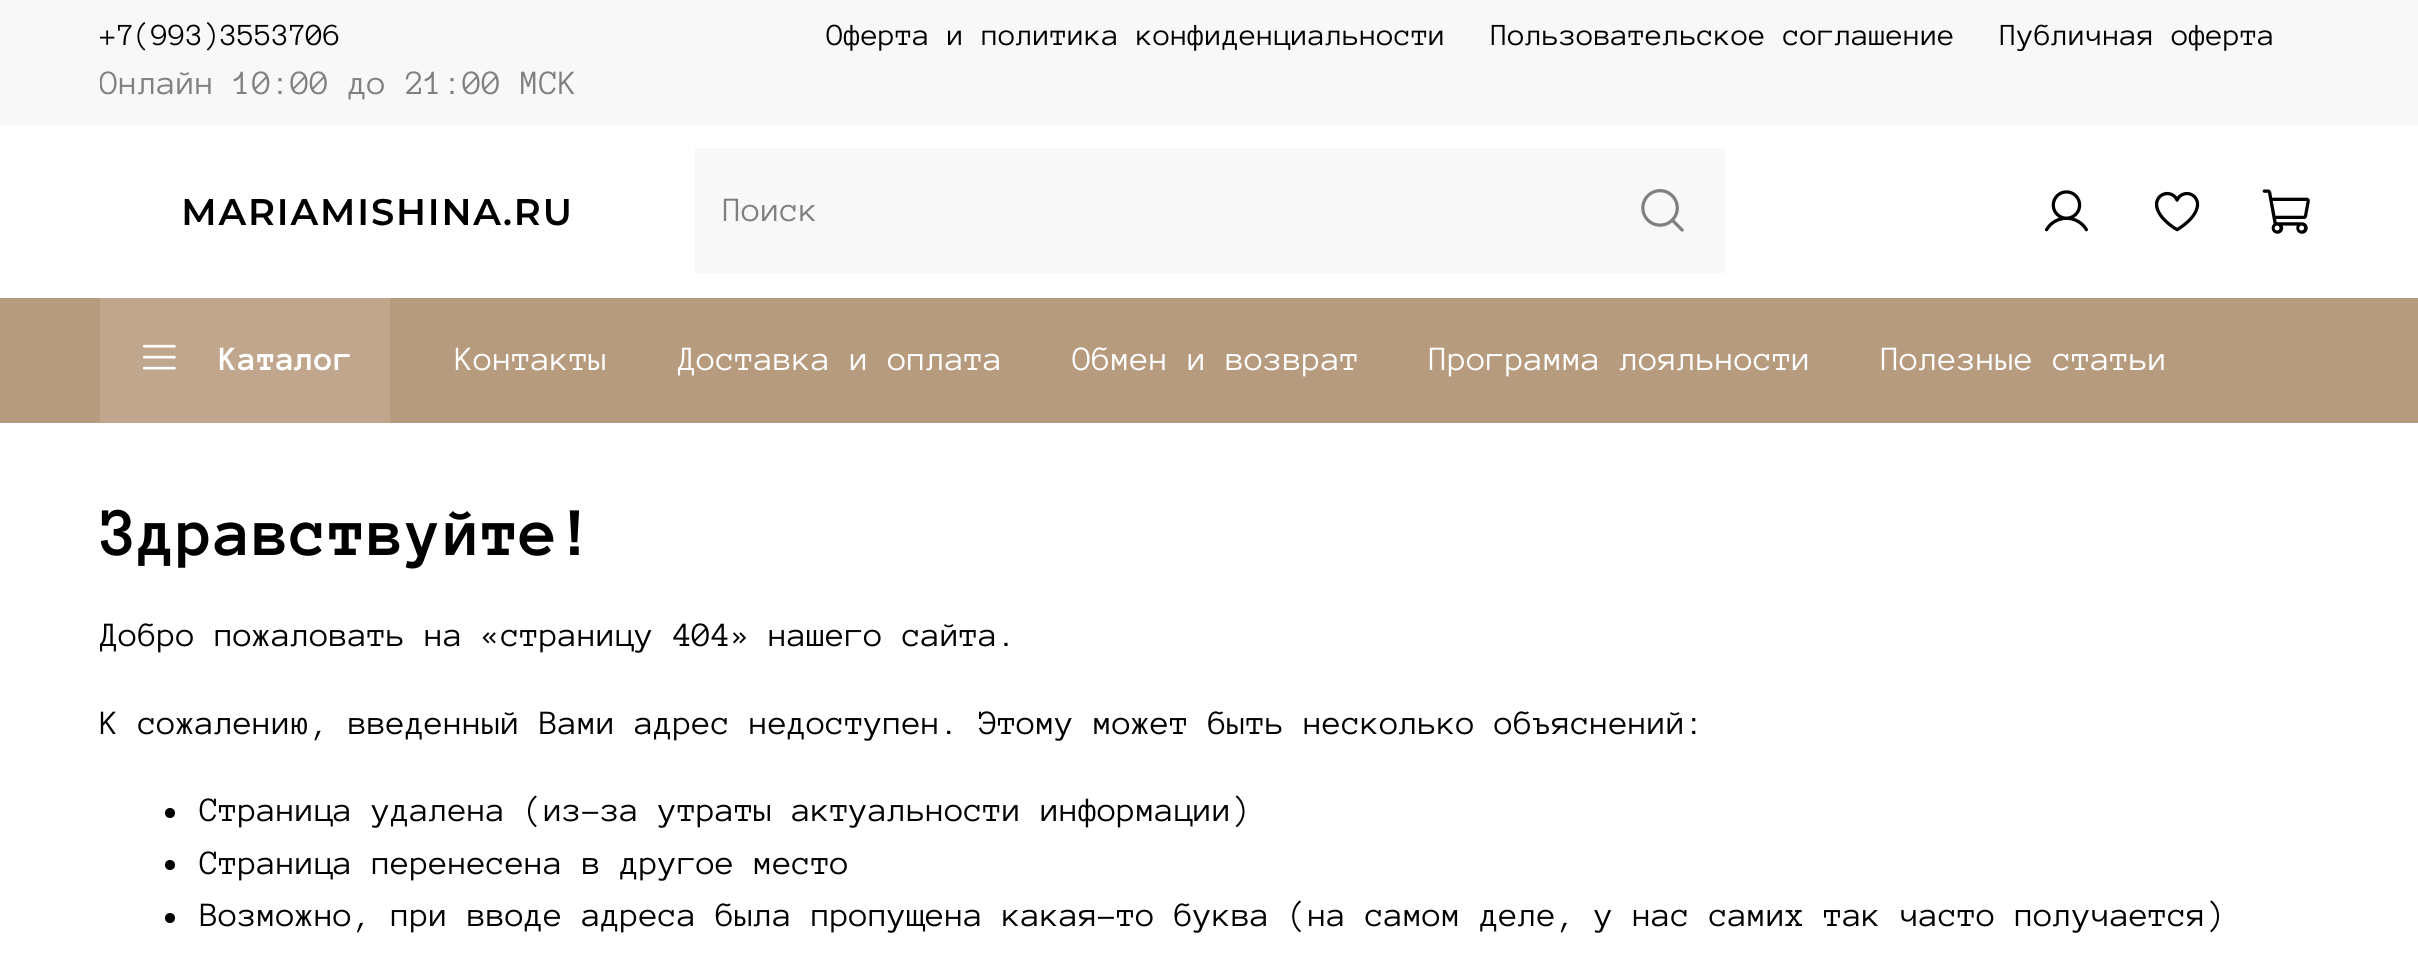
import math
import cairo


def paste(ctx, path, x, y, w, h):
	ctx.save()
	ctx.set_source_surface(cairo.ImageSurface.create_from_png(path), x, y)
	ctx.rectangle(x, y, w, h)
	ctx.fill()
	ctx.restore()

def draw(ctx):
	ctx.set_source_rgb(1, 1, 1)
	ctx.paint()
	ctx.set_source_rgb(0.969, 0.969, 0.969)
	ctx.rectangle(0, 0, 2418, 125)
	ctx.fill()
	ctx.select_font_face('Anonymous Pro')
	ctx.set_font_size(31.5)
	ctx.set_source_rgb(0, 0, 0)
	for x, y, s in [
		(100, 45, '+7(993)3553706'),
		(827, 45, 'Оферта и политика конфиденциальности'),
		(1491, 45, 'Пользовательское соглашение'),
		(2000, 45, 'Публичная оферта'),
	]:
		ctx.move_to(x, y)
		ctx.show_text(s)
	ctx.save()
	ctx.rectangle(100, 60, 478, 53)
	ctx.clip()
	ctx.set_font_size(35)
	ctx.set_source_rgb(0.502, 0.502, 0.502)
	ctx.move_to(100, 94)
	ctx.show_text('Онлайн 10:00 до 21:00 МСК')
	ctx.restore()
	paste(ctx, 'media/1.png', 184, 198, 385, 28)
	ctx.set_source_rgb(0.969, 0.969, 0.969)
	ctx.rectangle(695, 148, 1030, 125)
	ctx.fill()
	ctx.set_font_size(35)
	ctx.set_source_rgb(0.502, 0.502, 0.502)
	ctx.move_to(723, 221)
	ctx.show_text('Поиск')
	paste(ctx, 'media/2.png', 1641, 189, 43, 43)
	paste(ctx, 'media/3.png', 2044, 190, 44, 42)
	paste(ctx, 'media/4.png', 2154, 191, 46, 41)
	paste(ctx, 'media/5.png', 2262, 189, 48, 45)
	ctx.set_source_rgb(0.718, 0.608, 0.494)
	ctx.rectangle(0, 298, 2418, 125)
	ctx.fill()
	ctx.set_source_rgb(0.749, 0.651, 0.549)
	ctx.rectangle(100, 298, 290, 125)
	ctx.fill()
	paste(ctx, 'media/6.png', 143, 344, 33, 26)
	ctx.select_font_face('Anonymous Pro', cairo.FONT_SLANT_NORMAL, cairo.FONT_WEIGHT_BOLD)
	ctx.set_source_rgb(1, 1, 1)
	ctx.move_to(219, 370)
	ctx.show_text('Каталог')
	ctx.select_font_face('Anonymous Pro')
	for x, y, s in [
		(455, 370, 'Контакты'),
		(678, 370, 'Доставка и оплата'),
		(1073, 370, 'Обмен и возврат'),
		(1429, 370, 'Программа лояльности'),
		(1881, 370, 'Полезные статьи'),
	]:
		ctx.move_to(x, y)
		ctx.show_text(s)
	ctx.select_font_face('Anonymous Pro', cairo.FONT_SLANT_NORMAL, cairo.FONT_WEIGHT_BOLD)
	ctx.set_font_size(70)
	ctx.set_source_rgb(0, 0, 0)
	ctx.move_to(100, 555)
	ctx.show_text('Здравствуйте!')
	ctx.select_font_face('Anonymous Pro')
	ctx.set_font_size(35)
	ctx.move_to(100, 646)
	ctx.show_text('Добро пожаловать на «страницу 404» нашего сайта.')
	ctx.move_to(100, 734)
	ctx.show_text('К сожалению, введенный Вами адрес недоступен. Этому может быть несколько объяснений:')
	ctx.new_path()
	ctx.arc(170, 813, 5, 0, 2 * math.pi)
	ctx.fill()
	ctx.move_to(200, 821)
	ctx.show_text('Страница удалена (из-за утраты актуальности информации)')
	ctx.new_path()
	ctx.arc(170, 865, 5, 0, 2 * math.pi)
	ctx.fill()
	ctx.move_to(200, 874)
	ctx.show_text('Страница перенесена в другое место')
	ctx.new_path()
	ctx.arc(170, 918, 5, 0, 2 * math.pi)
	ctx.fill()
	ctx.move_to(200, 926)
	ctx.show_text('Возможно, при вводе адреса была пропущена какая-то буква (на самом деле, у нас самих так часто получается)')


surface = cairo.ImageSurface(cairo.FORMAT_RGB24, 2418, 976)
ctx = cairo.Context(surface)
options = cairo.FontOptions()
options.set_hint_metrics(cairo.HINT_METRICS_OFF)
options.set_hint_style(cairo.HINT_STYLE_NONE)
ctx.set_font_options(options)
ctx.set_miter_limit(4)
draw(ctx)
surface.write_to_png('image.png')
